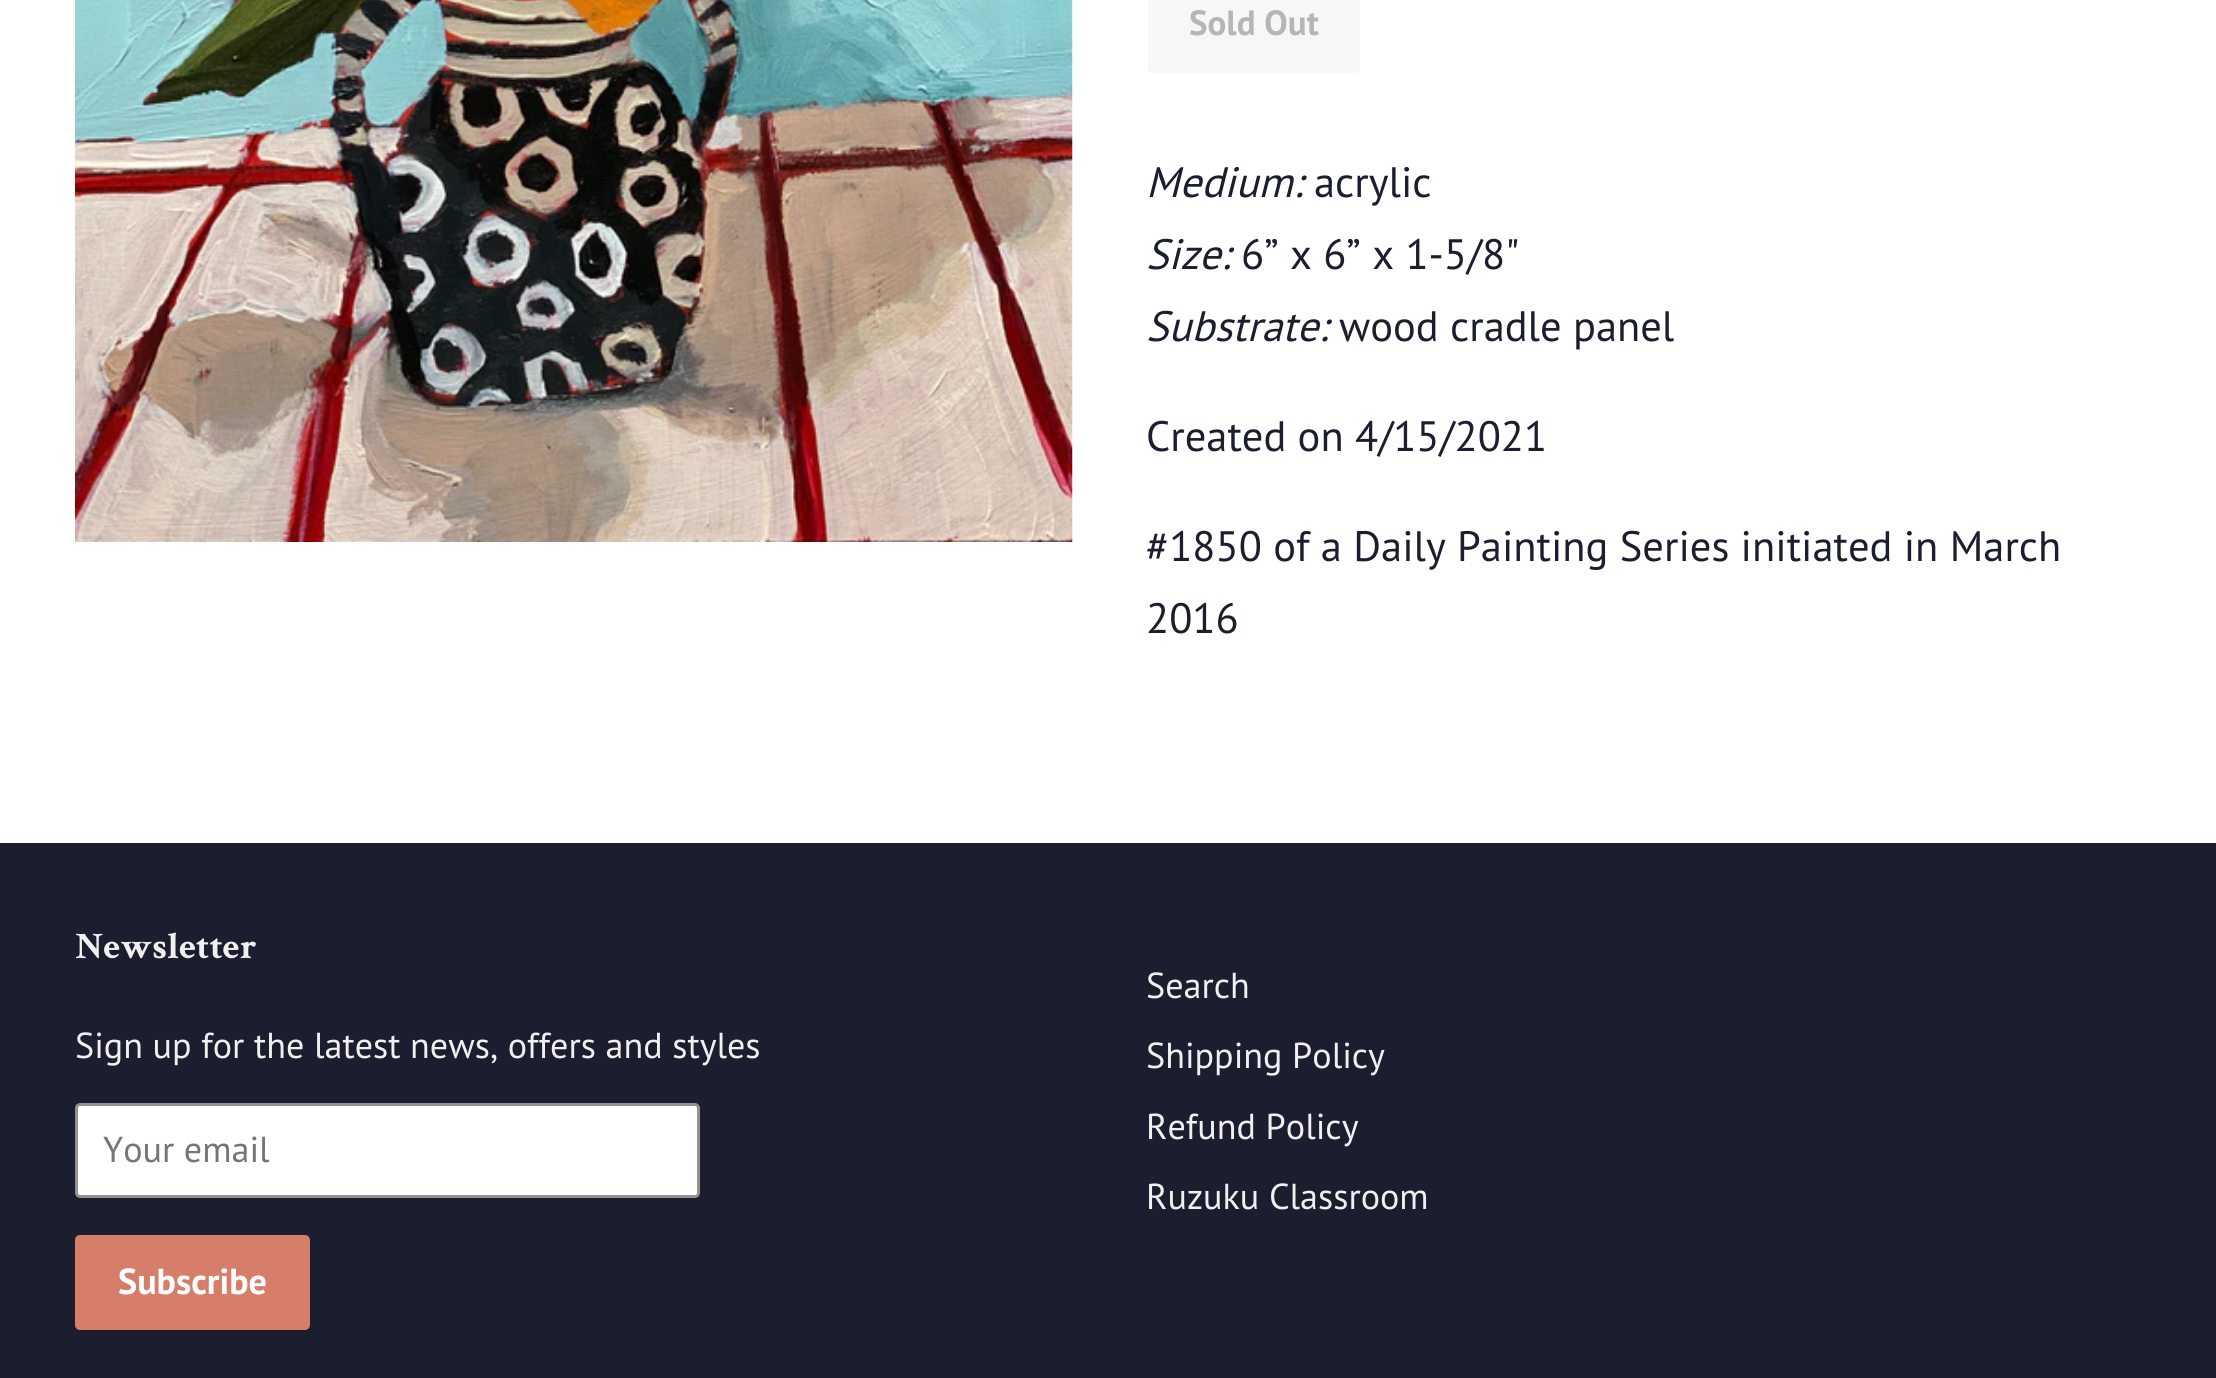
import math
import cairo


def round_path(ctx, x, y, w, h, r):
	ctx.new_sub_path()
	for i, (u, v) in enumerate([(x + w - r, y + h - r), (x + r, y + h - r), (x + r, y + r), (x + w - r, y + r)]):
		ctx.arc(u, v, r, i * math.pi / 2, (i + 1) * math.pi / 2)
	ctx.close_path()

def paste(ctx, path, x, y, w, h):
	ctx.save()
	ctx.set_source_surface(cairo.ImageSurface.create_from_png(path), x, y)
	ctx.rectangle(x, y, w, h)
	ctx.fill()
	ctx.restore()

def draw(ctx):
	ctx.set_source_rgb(1, 1, 1)
	ctx.paint()
	paste(ctx, 'media/1.png', 75, 0, 998, 542)
	ctx.set_source_rgb(0.965, 0.965, 0.965)
	round_path(ctx, 1148, -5, 212, 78, 5)
	ctx.fill()
	ctx.select_font_face('PT Sans', cairo.FONT_SLANT_NORMAL, cairo.FONT_WEIGHT_BOLD)
	ctx.set_font_size(35)
	ctx.set_source_rgb(0.714, 0.714, 0.714)
	ctx.move_to(1189, 35)
	ctx.show_text('Sold Out')
	ctx.select_font_face('PT Sans', cairo.FONT_SLANT_ITALIC)
	ctx.set_font_size(42.5)
	ctx.set_source_rgb(0.106, 0.118, 0.184)
	ctx.move_to(1146, 197)
	ctx.show_text('Medium:')
	ctx.select_font_face('PT Sans')
	ctx.move_to(1314, 197)
	ctx.show_text('acrylic')
	ctx.select_font_face('PT Sans', cairo.FONT_SLANT_ITALIC)
	ctx.move_to(1146, 269)
	ctx.show_text('Size:')
	ctx.select_font_face('PT Sans')
	ctx.move_to(1241, 269)
	ctx.show_text('6” x 6” x 1-5/8"')
	ctx.select_font_face('PT Sans', cairo.FONT_SLANT_ITALIC)
	ctx.move_to(1146, 341)
	ctx.show_text('Substrate:')
	ctx.select_font_face('PT Sans')
	for x, y, s in [
		(1339, 341, 'wood cradle panel'),
		(1146, 451, 'Created on 4/15/2021'),
		(1146, 561, '#1850 of a Daily Painting Series initiated in March'),
		(1146, 633, '2016'),
	]:
		ctx.move_to(x, y)
		ctx.show_text(s)
	ctx.rectangle(0, 843, 2216, 535)
	ctx.fill()
	ctx.select_font_face('Crimson Text', cairo.FONT_SLANT_NORMAL, cairo.FONT_WEIGHT_BOLD)
	ctx.set_font_size(37.5)
	ctx.set_source_rgb(0.949, 0.941, 0.933)
	ctx.move_to(75, 958)
	ctx.show_text('Newsletter')
	ctx.select_font_face('PT Sans')
	ctx.set_font_size(36.1)
	ctx.move_to(75, 1058)
	ctx.show_text('Sign up for the latest news, offers and styles')
	ctx.set_source_rgb(1, 1, 1)
	round_path(ctx, 76.5, 1104.5, 622, 92, 3.5)
	ctx.fill_preserve()
	ctx.set_source_rgb(0.573, 0.573, 0.569)
	ctx.set_line_width(3)
	ctx.stroke()
	ctx.set_source_rgb(0.459, 0.459, 0.459)
	ctx.move_to(103, 1162)
	ctx.show_text('Your email')
	ctx.set_source_rgb(0.843, 0.494, 0.416)
	round_path(ctx, 75, 1235, 235, 95, 5)
	ctx.fill()
	ctx.select_font_face('PT Sans', cairo.FONT_SLANT_NORMAL, cairo.FONT_WEIGHT_BOLD)
	ctx.set_source_rgb(1, 1, 1)
	ctx.move_to(118, 1294)
	ctx.show_text('Subscribe')
	ctx.select_font_face('PT Sans')
	ctx.set_source_rgb(0.949, 0.941, 0.933)
	for x, y, s in [
		(1146, 998, 'Search'),
		(1146, 1068, 'Shipping Policy'),
		(1146, 1139, 'Refund Policy'),
		(1146, 1209, 'Ruzuku Classroom'),
	]:
		ctx.move_to(x, y)
		ctx.show_text(s)


surface = cairo.ImageSurface(cairo.FORMAT_RGB24, 2216, 1378)
ctx = cairo.Context(surface)
options = cairo.FontOptions()
options.set_hint_metrics(cairo.HINT_METRICS_OFF)
options.set_hint_style(cairo.HINT_STYLE_NONE)
ctx.set_font_options(options)
ctx.set_miter_limit(4)
draw(ctx)
surface.write_to_png('image.png')
